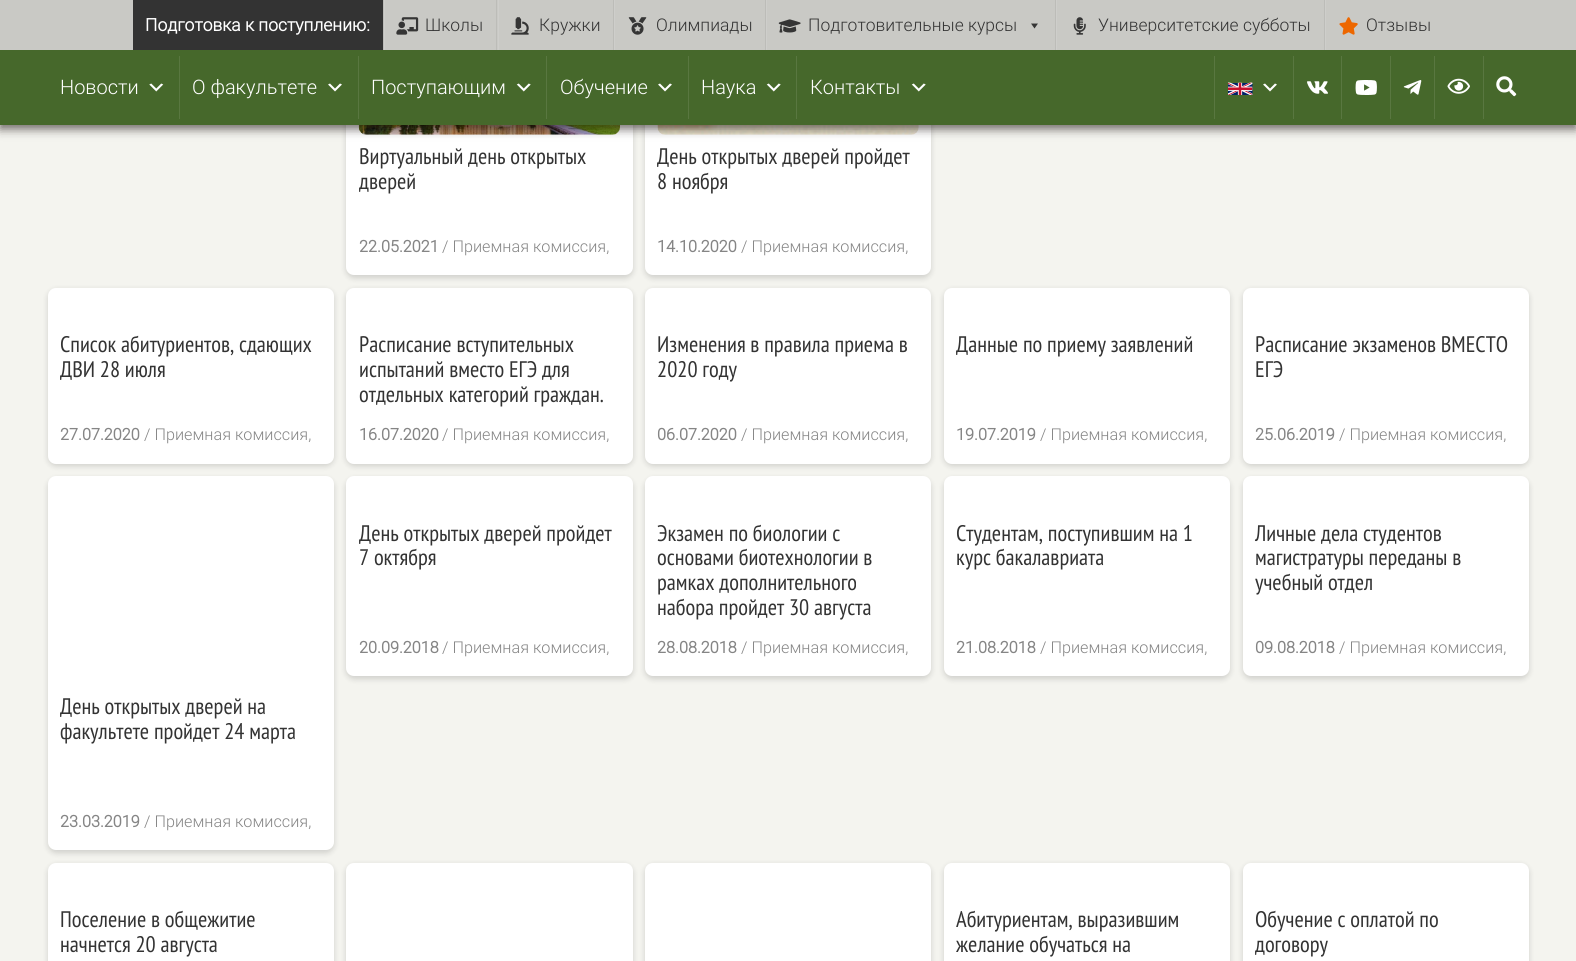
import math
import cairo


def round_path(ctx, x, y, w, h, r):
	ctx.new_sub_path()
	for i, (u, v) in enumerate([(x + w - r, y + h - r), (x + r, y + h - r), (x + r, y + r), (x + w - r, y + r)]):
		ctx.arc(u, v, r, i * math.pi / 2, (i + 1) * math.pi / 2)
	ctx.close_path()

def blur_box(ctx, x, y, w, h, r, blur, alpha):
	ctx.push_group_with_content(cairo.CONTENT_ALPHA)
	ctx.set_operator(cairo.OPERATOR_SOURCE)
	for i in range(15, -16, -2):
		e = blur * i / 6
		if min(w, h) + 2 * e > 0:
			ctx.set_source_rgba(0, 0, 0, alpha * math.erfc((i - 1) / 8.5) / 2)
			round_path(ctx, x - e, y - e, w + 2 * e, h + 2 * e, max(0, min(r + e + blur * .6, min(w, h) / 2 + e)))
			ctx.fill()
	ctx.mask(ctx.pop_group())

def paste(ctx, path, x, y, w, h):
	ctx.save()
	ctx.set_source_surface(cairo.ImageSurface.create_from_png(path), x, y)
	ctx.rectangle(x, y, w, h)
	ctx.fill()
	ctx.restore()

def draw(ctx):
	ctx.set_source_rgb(0.957, 0.957, 0.937)
	ctx.paint()
	ctx.set_source_rgb(0, 0, 0)
	blur_box(ctx, 346, -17, 287, 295, 8, 3, 0.15)
	ctx.set_source_rgb(1, 1, 1)
	round_path(ctx, 346, -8, 287, 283, 8)
	ctx.fill()
	paste(ctx, 'media/16.png', 358, 125, 262, 10)
	ctx.set_source_rgb(0, 0, 0)
	blur_box(ctx, 645, -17, 286, 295, 8, 3, 0.15)
	ctx.set_source_rgb(1, 1, 1)
	round_path(ctx, 645, -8, 286, 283, 8)
	ctx.fill()
	paste(ctx, 'media/17.png', 657, 125, 262, 10)
	ctx.set_source_rgb(0.039, 0, 0)
	blur_box(ctx, 0, 54, 1576, 75, 0, 5, 0.58)
	ctx.set_source_rgb(0.788, 0.788, 0.773)
	ctx.rectangle(0, 0, 1576, 50)
	ctx.fill()
	ctx.set_source_rgb(0.2, 0.2, 0.2)
	ctx.rectangle(133, 0, 250, 50)
	ctx.fill()
	ctx.select_font_face('Roboto', cairo.FONT_SLANT_NORMAL, cairo.FONT_WEIGHT_BOLD)
	ctx.set_font_size(17.5)
	ctx.set_source_rgb(1, 1, 1)
	ctx.move_to(145, 31)
	ctx.show_text('Подготовка к поступлению:')
	ctx.set_source_rgb(0.808, 0.808, 0.796)
	ctx.rectangle(384, 0, 1, 50)
	ctx.fill()
	ctx.set_source_rgb(0.737, 0.737, 0.722)
	ctx.rectangle(383, 0, 1, 50)
	ctx.fill()
	paste(ctx, 'media/1.png', 396, 17, 23, 18)
	ctx.select_font_face('Roboto Light')
	ctx.set_source_rgb(0.2, 0.2, 0.2)
	ctx.move_to(425, 31)
	ctx.show_text('Школы')
	ctx.set_source_rgb(0.808, 0.808, 0.796)
	ctx.rectangle(498, 0, 1, 50)
	ctx.fill()
	ctx.set_source_rgb(0.737, 0.737, 0.722)
	ctx.rectangle(496, 0, 1, 50)
	ctx.fill()
	paste(ctx, 'media/2.png', 511, 17, 18, 18)
	ctx.set_source_rgb(0.2, 0.2, 0.2)
	ctx.move_to(539, 31)
	ctx.show_text('Кружки')
	ctx.set_source_rgb(0.808, 0.808, 0.796)
	ctx.rectangle(614, 0, 1, 50)
	ctx.fill()
	ctx.set_source_rgb(0.737, 0.737, 0.722)
	ctx.rectangle(613, 0, 1, 50)
	ctx.fill()
	paste(ctx, 'media/3.png', 628, 17, 19, 18)
	ctx.set_source_rgb(0.2, 0.2, 0.2)
	ctx.move_to(656, 31)
	ctx.show_text('Олимпиады')
	ctx.set_source_rgb(0.808, 0.808, 0.796)
	ctx.rectangle(766, 0, 1, 50)
	ctx.fill()
	ctx.set_source_rgb(0.737, 0.737, 0.722)
	ctx.rectangle(765, 0, 1, 50)
	ctx.fill()
	paste(ctx, 'media/4.png', 778, 19, 23, 14)
	ctx.set_source_rgb(0.2, 0.2, 0.2)
	ctx.move_to(808, 31)
	ctx.show_text('Подготовительные курсы')
	ctx.set_source_rgb(0.208, 0.208, 0.208)
	ctx.new_path()
	ctx.move_to(1038, 23.5)
	ctx.line_to(1034.5, 28.5)
	ctx.line_to(1031, 23.5)
	ctx.close_path()
	ctx.fill()
	ctx.set_source_rgb(0.808, 0.808, 0.796)
	ctx.rectangle(1056, 0, 1, 50)
	ctx.fill()
	ctx.set_source_rgb(0.737, 0.737, 0.722)
	ctx.rectangle(1055, 0, 1, 50)
	ctx.fill()
	paste(ctx, 'media/5.png', 1073, 17, 13, 18)
	ctx.set_source_rgb(0.2, 0.2, 0.2)
	ctx.move_to(1098, 31)
	ctx.show_text('Университетские субботы')
	ctx.set_source_rgb(0.808, 0.808, 0.796)
	ctx.rectangle(1325, 0, 1, 50)
	ctx.fill()
	ctx.set_source_rgb(0.737, 0.737, 0.722)
	ctx.rectangle(1324, 0, 1, 50)
	ctx.fill()
	paste(ctx, 'media/6.png', 1339, 17, 19, 18)
	ctx.set_source_rgb(0.2, 0.2, 0.2)
	ctx.move_to(1366, 31)
	ctx.show_text('Отзывы')
	ctx.set_source_rgb(0.275, 0.408, 0.169)
	ctx.rectangle(0, 50, 1576, 75)
	ctx.fill()
	ctx.set_font_size(20)
	ctx.set_source_rgb(1, 1, 1)
	ctx.move_to(60, 94)
	ctx.show_text('Новости')
	paste(ctx, 'media/7.png', 149, 83, 15, 9)
	ctx.set_source_rgb(0.349, 0.467, 0.251)
	ctx.rectangle(179, 56, 1, 63)
	ctx.fill()
	ctx.set_source_rgb(1, 1, 1)
	ctx.move_to(192, 94)
	ctx.show_text('О факультете')
	paste(ctx, 'media/8.png', 328, 83, 14, 9)
	ctx.set_source_rgb(0.349, 0.467, 0.251)
	ctx.rectangle(358, 56, 1, 63)
	ctx.fill()
	ctx.set_source_rgb(1, 1, 1)
	ctx.move_to(371, 94)
	ctx.show_text('Поступающим')
	paste(ctx, 'media/9.png', 516, 83, 15, 9)
	ctx.set_source_rgb(0.349, 0.467, 0.251)
	ctx.rectangle(546, 56, 1, 63)
	ctx.fill()
	ctx.set_source_rgb(1, 1, 1)
	ctx.move_to(560, 94)
	ctx.show_text('Обучение')
	paste(ctx, 'media/8.png', 658, 83, 14, 9)
	ctx.set_source_rgb(0.349, 0.467, 0.251)
	ctx.rectangle(688, 56, 1, 63)
	ctx.fill()
	ctx.set_source_rgb(1, 1, 1)
	ctx.move_to(701, 94)
	ctx.show_text('Наука')
	paste(ctx, 'media/9.png', 766, 83, 15, 9)
	ctx.set_source_rgb(0.349, 0.467, 0.251)
	ctx.rectangle(796, 56, 1, 63)
	ctx.fill()
	ctx.set_source_rgb(1, 1, 1)
	ctx.move_to(810, 94)
	ctx.show_text('Контакты')
	paste(ctx, 'media/9.png', 911, 83, 15, 9)
	ctx.set_source_rgb(0.349, 0.467, 0.251)
	ctx.rectangle(1214, 56, 1, 63)
	ctx.fill()
	paste(ctx, 'media/10.png', 1228, 82, 25, 13)
	paste(ctx, 'media/8.png', 1263, 83, 14, 9)
	ctx.rectangle(1293, 56, 1, 63)
	ctx.fill()
	paste(ctx, 'media/11.png', 1307, 81, 21, 13)
	ctx.rectangle(1341, 56, 1, 63)
	ctx.fill()
	paste(ctx, 'media/12.png', 1355, 80, 22, 15)
	ctx.rectangle(1390, 56, 1, 63)
	ctx.fill()
	paste(ctx, 'media/13.png', 1403, 80, 19, 15)
	ctx.rectangle(1434, 56, 1, 63)
	ctx.fill()
	paste(ctx, 'media/14.png', 1447, 78, 23, 16)
	ctx.rectangle(1483, 56, 1, 63)
	ctx.fill()
	paste(ctx, 'media/15.png', 1496, 76, 21, 21)
	ctx.select_font_face('PT Sans Narrow')
	ctx.set_font_size(22.5)
	ctx.set_source_rgb(0.2, 0.2, 0.2)
	ctx.move_to(359, 164)
	ctx.show_text('Виртуальный день открытых')
	ctx.move_to(359, 189)
	ctx.show_text('дверей')
	ctx.select_font_face('Roboto', cairo.FONT_SLANT_NORMAL, cairo.FONT_WEIGHT_BOLD)
	ctx.set_font_size(16.25)
	ctx.set_source_rgb(0.522, 0.522, 0.522)
	ctx.move_to(359, 252)
	ctx.show_text('22.05.2021')
	ctx.select_font_face('Roboto Light')
	ctx.move_to(442, 252)
	ctx.show_text('/ Приемная комиссия,')
	ctx.select_font_face('PT Sans Narrow')
	ctx.set_font_size(22.5)
	ctx.set_source_rgb(0.2, 0.2, 0.2)
	ctx.move_to(657, 164)
	ctx.show_text('День открытых дверей пройдет')
	ctx.move_to(657, 189)
	ctx.show_text('8 ноября')
	ctx.select_font_face('Roboto', cairo.FONT_SLANT_NORMAL, cairo.FONT_WEIGHT_BOLD)
	ctx.set_font_size(16.25)
	ctx.set_source_rgb(0.522, 0.522, 0.522)
	ctx.move_to(657, 252)
	ctx.show_text('14.10.2020')
	ctx.select_font_face('Roboto Light')
	ctx.move_to(741, 252)
	ctx.show_text('/ Приемная комиссия,')
	ctx.set_source_rgb(0, 0, 0)
	blur_box(ctx, 48, 290, 286, 176, 8, 3, 0.15)
	ctx.set_source_rgb(1, 1, 1)
	round_path(ctx, 48, 288, 286, 176, 8)
	ctx.fill()
	ctx.select_font_face('PT Sans Narrow')
	ctx.set_font_size(22.5)
	ctx.set_source_rgb(0.2, 0.2, 0.2)
	ctx.move_to(60, 352)
	ctx.show_text('Список абитуриентов, сдающих')
	ctx.move_to(60, 377)
	ctx.show_text('ДВИ 28 июля')
	ctx.select_font_face('Roboto', cairo.FONT_SLANT_NORMAL, cairo.FONT_WEIGHT_BOLD)
	ctx.set_font_size(16.25)
	ctx.set_source_rgb(0.522, 0.522, 0.522)
	ctx.move_to(60, 440)
	ctx.show_text('27.07.2020')
	ctx.select_font_face('Roboto Light')
	ctx.move_to(144, 440)
	ctx.show_text('/ Приемная комиссия,')
	ctx.set_source_rgb(0, 0, 0)
	blur_box(ctx, 346, 290, 287, 176, 8, 3, 0.15)
	ctx.set_source_rgb(1, 1, 1)
	round_path(ctx, 346, 288, 287, 176, 8)
	ctx.fill()
	ctx.select_font_face('PT Sans Narrow')
	ctx.set_font_size(22.5)
	ctx.set_source_rgb(0.2, 0.2, 0.2)
	for x, y, s in [
		(359, 352, 'Расписание вступительных'),
		(359, 377, 'испытаний вместо ЕГЭ для'),
		(359, 402, 'отдельных категорий граждан.'),
	]:
		ctx.move_to(x, y)
		ctx.show_text(s)
	ctx.select_font_face('Roboto', cairo.FONT_SLANT_NORMAL, cairo.FONT_WEIGHT_BOLD)
	ctx.set_font_size(16.25)
	ctx.set_source_rgb(0.522, 0.522, 0.522)
	ctx.move_to(359, 440)
	ctx.show_text('16.07.2020')
	ctx.select_font_face('Roboto Light')
	ctx.move_to(442, 440)
	ctx.show_text('/ Приемная комиссия,')
	ctx.set_source_rgb(0, 0, 0)
	blur_box(ctx, 645, 290, 286, 176, 8, 3, 0.15)
	ctx.set_source_rgb(1, 1, 1)
	round_path(ctx, 645, 288, 286, 176, 8)
	ctx.fill()
	ctx.select_font_face('PT Sans Narrow')
	ctx.set_font_size(22.5)
	ctx.set_source_rgb(0.2, 0.2, 0.2)
	ctx.move_to(657, 352)
	ctx.show_text('Изменения в правила приема в')
	ctx.move_to(657, 377)
	ctx.show_text('2020 году')
	ctx.select_font_face('Roboto', cairo.FONT_SLANT_NORMAL, cairo.FONT_WEIGHT_BOLD)
	ctx.set_font_size(16.25)
	ctx.set_source_rgb(0.522, 0.522, 0.522)
	ctx.move_to(657, 440)
	ctx.show_text('06.07.2020')
	ctx.select_font_face('Roboto Light')
	ctx.move_to(741, 440)
	ctx.show_text('/ Приемная комиссия,')
	ctx.set_source_rgb(0, 0, 0)
	blur_box(ctx, 944, 290, 286, 176, 8, 3, 0.15)
	ctx.set_source_rgb(1, 1, 1)
	round_path(ctx, 944, 288, 286, 176, 8)
	ctx.fill()
	ctx.select_font_face('PT Sans Narrow')
	ctx.set_font_size(22.5)
	ctx.set_source_rgb(0.2, 0.2, 0.2)
	ctx.move_to(956, 352)
	ctx.show_text('Данные по приему заявлений')
	ctx.select_font_face('Roboto', cairo.FONT_SLANT_NORMAL, cairo.FONT_WEIGHT_BOLD)
	ctx.set_font_size(16.25)
	ctx.set_source_rgb(0.522, 0.522, 0.522)
	ctx.move_to(956, 440)
	ctx.show_text('19.07.2019')
	ctx.select_font_face('Roboto Light')
	ctx.move_to(1040, 440)
	ctx.show_text('/ Приемная комиссия,')
	ctx.set_source_rgb(0, 0, 0)
	blur_box(ctx, 1243, 290, 286, 176, 8, 3, 0.15)
	ctx.set_source_rgb(1, 1, 1)
	round_path(ctx, 1243, 288, 286, 176, 8)
	ctx.fill()
	ctx.select_font_face('PT Sans Narrow')
	ctx.set_font_size(22.5)
	ctx.set_source_rgb(0.2, 0.2, 0.2)
	ctx.move_to(1255, 352)
	ctx.show_text('Расписание экзаменов ВМЕСТО')
	ctx.move_to(1255, 377)
	ctx.show_text('ЕГЭ')
	ctx.select_font_face('Roboto', cairo.FONT_SLANT_NORMAL, cairo.FONT_WEIGHT_BOLD)
	ctx.set_font_size(16.25)
	ctx.set_source_rgb(0.522, 0.522, 0.522)
	ctx.move_to(1255, 440)
	ctx.show_text('25.06.2019')
	ctx.select_font_face('Roboto Light')
	ctx.move_to(1339, 440)
	ctx.show_text('/ Приемная комиссия,')
	ctx.set_source_rgb(0, 0, 0)
	blur_box(ctx, 346, 479, 287, 200, 8, 3, 0.15)
	ctx.set_source_rgb(1, 1, 1)
	round_path(ctx, 346, 476, 287, 200, 8)
	ctx.fill()
	ctx.select_font_face('PT Sans Narrow')
	ctx.set_font_size(22.5)
	ctx.set_source_rgb(0.2, 0.2, 0.2)
	ctx.move_to(359, 541)
	ctx.show_text('День открытых дверей пройдет')
	ctx.move_to(359, 565)
	ctx.show_text('7 октября')
	ctx.select_font_face('Roboto', cairo.FONT_SLANT_NORMAL, cairo.FONT_WEIGHT_BOLD)
	ctx.set_font_size(16.25)
	ctx.set_source_rgb(0.522, 0.522, 0.522)
	ctx.move_to(359, 653)
	ctx.show_text('20.09.2018')
	ctx.select_font_face('Roboto Light')
	ctx.move_to(442, 653)
	ctx.show_text('/ Приемная комиссия,')
	ctx.set_source_rgb(0, 0, 0)
	blur_box(ctx, 645, 479, 286, 200, 8, 3, 0.15)
	ctx.set_source_rgb(1, 1, 1)
	round_path(ctx, 645, 476, 286, 200, 8)
	ctx.fill()
	ctx.select_font_face('PT Sans Narrow')
	ctx.set_font_size(22.5)
	ctx.set_source_rgb(0.2, 0.2, 0.2)
	for x, y, s in [
		(657, 541, 'Экзамен по биологии с'),
		(657, 565, 'основами биотехнологии в'),
		(657, 590, 'рамках дополнительного'),
		(657, 615, 'набора пройдет 30 августа'),
	]:
		ctx.move_to(x, y)
		ctx.show_text(s)
	ctx.select_font_face('Roboto', cairo.FONT_SLANT_NORMAL, cairo.FONT_WEIGHT_BOLD)
	ctx.set_font_size(16.25)
	ctx.set_source_rgb(0.522, 0.522, 0.522)
	ctx.move_to(657, 653)
	ctx.show_text('28.08.2018')
	ctx.select_font_face('Roboto Light')
	ctx.move_to(741, 653)
	ctx.show_text('/ Приемная комиссия,')
	ctx.set_source_rgb(0, 0, 0)
	blur_box(ctx, 944, 479, 286, 200, 8, 3, 0.15)
	ctx.set_source_rgb(1, 1, 1)
	round_path(ctx, 944, 476, 286, 200, 8)
	ctx.fill()
	ctx.select_font_face('PT Sans Narrow')
	ctx.set_font_size(22.5)
	ctx.set_source_rgb(0.2, 0.2, 0.2)
	ctx.move_to(956, 541)
	ctx.show_text('Студентам, поступившим на 1')
	ctx.move_to(956, 565)
	ctx.show_text('курс бакалавриата')
	ctx.select_font_face('Roboto', cairo.FONT_SLANT_NORMAL, cairo.FONT_WEIGHT_BOLD)
	ctx.set_font_size(16.25)
	ctx.set_source_rgb(0.522, 0.522, 0.522)
	ctx.move_to(956, 653)
	ctx.show_text('21.08.2018')
	ctx.select_font_face('Roboto Light')
	ctx.move_to(1040, 653)
	ctx.show_text('/ Приемная комиссия,')
	ctx.set_source_rgb(0, 0, 0)
	blur_box(ctx, 1243, 479, 286, 200, 8, 3, 0.15)
	ctx.set_source_rgb(1, 1, 1)
	round_path(ctx, 1243, 476, 286, 200, 8)
	ctx.fill()
	ctx.select_font_face('PT Sans Narrow')
	ctx.set_font_size(22.5)
	ctx.set_source_rgb(0.2, 0.2, 0.2)
	for x, y, s in [
		(1255, 541, 'Личные дела студентов'),
		(1255, 565, 'магистратуры переданы в'),
		(1255, 590, 'учебный отдел'),
	]:
		ctx.move_to(x, y)
		ctx.show_text(s)
	ctx.select_font_face('Roboto', cairo.FONT_SLANT_NORMAL, cairo.FONT_WEIGHT_BOLD)
	ctx.set_font_size(16.25)
	ctx.set_source_rgb(0.522, 0.522, 0.522)
	ctx.move_to(1255, 653)
	ctx.show_text('09.08.2018')
	ctx.select_font_face('Roboto Light')
	ctx.move_to(1339, 653)
	ctx.show_text('/ Приемная комиссия,')
	ctx.set_source_rgb(0, 0, 0)
	blur_box(ctx, 48, 479, 286, 374, 8, 3, 0.15)
	ctx.set_source_rgb(1, 1, 1)
	round_path(ctx, 48, 476, 286, 374, 8)
	ctx.fill()
	ctx.select_font_face('PT Sans Narrow')
	ctx.set_font_size(22.5)
	ctx.set_source_rgb(0.2, 0.2, 0.2)
	ctx.move_to(60, 714)
	ctx.show_text('День открытых дверей на')
	ctx.move_to(60, 739)
	ctx.show_text('факультете пройдет 24 марта')
	ctx.select_font_face('Roboto', cairo.FONT_SLANT_NORMAL, cairo.FONT_WEIGHT_BOLD)
	ctx.set_font_size(16.25)
	ctx.set_source_rgb(0.522, 0.522, 0.522)
	ctx.move_to(60, 827)
	ctx.show_text('23.03.2019')
	ctx.select_font_face('Roboto Light')
	ctx.move_to(144, 827)
	ctx.show_text('/ Приемная комиссия,')
	ctx.set_source_rgb(0, 0, 0)
	blur_box(ctx, 48, 865, 286, 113, 8, 3, 0.15)
	ctx.set_source_rgb(1, 1, 1)
	round_path(ctx, 48, 863, 286, 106, 8)
	ctx.fill()
	ctx.select_font_face('PT Sans Narrow')
	ctx.set_font_size(22.5)
	ctx.set_source_rgb(0.2, 0.2, 0.2)
	ctx.move_to(60, 927)
	ctx.show_text('Поселение в общежитие')
	ctx.move_to(60, 952)
	ctx.show_text('начнется 20 августа')
	ctx.set_source_rgb(0, 0, 0)
	blur_box(ctx, 346, 865, 287, 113, 8, 3, 0.15)
	ctx.set_source_rgb(1, 1, 1)
	round_path(ctx, 346, 863, 287, 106, 8)
	ctx.fill()
	ctx.set_source_rgb(0, 0, 0)
	blur_box(ctx, 645, 865, 286, 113, 8, 3, 0.15)
	ctx.set_source_rgb(1, 1, 1)
	round_path(ctx, 645, 863, 286, 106, 8)
	ctx.fill()
	ctx.set_source_rgb(0, 0, 0)
	blur_box(ctx, 944, 865, 286, 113, 8, 3, 0.15)
	ctx.set_source_rgb(1, 1, 1)
	round_path(ctx, 944, 863, 286, 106, 8)
	ctx.fill()
	ctx.set_source_rgb(0.2, 0.2, 0.2)
	ctx.move_to(956, 927)
	ctx.show_text('Абитуриентам, выразившим')
	ctx.move_to(956, 952)
	ctx.show_text('желание обучаться на')
	ctx.set_source_rgb(0, 0, 0)
	blur_box(ctx, 1243, 865, 286, 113, 8, 3, 0.15)
	ctx.set_source_rgb(1, 1, 1)
	round_path(ctx, 1243, 863, 286, 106, 8)
	ctx.fill()
	ctx.set_source_rgb(0.2, 0.2, 0.2)
	ctx.move_to(1255, 927)
	ctx.show_text('Обучение с оплатой по')
	ctx.move_to(1255, 952)
	ctx.show_text('договору')


surface = cairo.ImageSurface(cairo.FORMAT_RGB24, 1576, 961)
ctx = cairo.Context(surface)
options = cairo.FontOptions()
options.set_hint_metrics(cairo.HINT_METRICS_OFF)
options.set_hint_style(cairo.HINT_STYLE_NONE)
ctx.set_font_options(options)
ctx.set_miter_limit(4)
draw(ctx)
surface.write_to_png('image.png')
